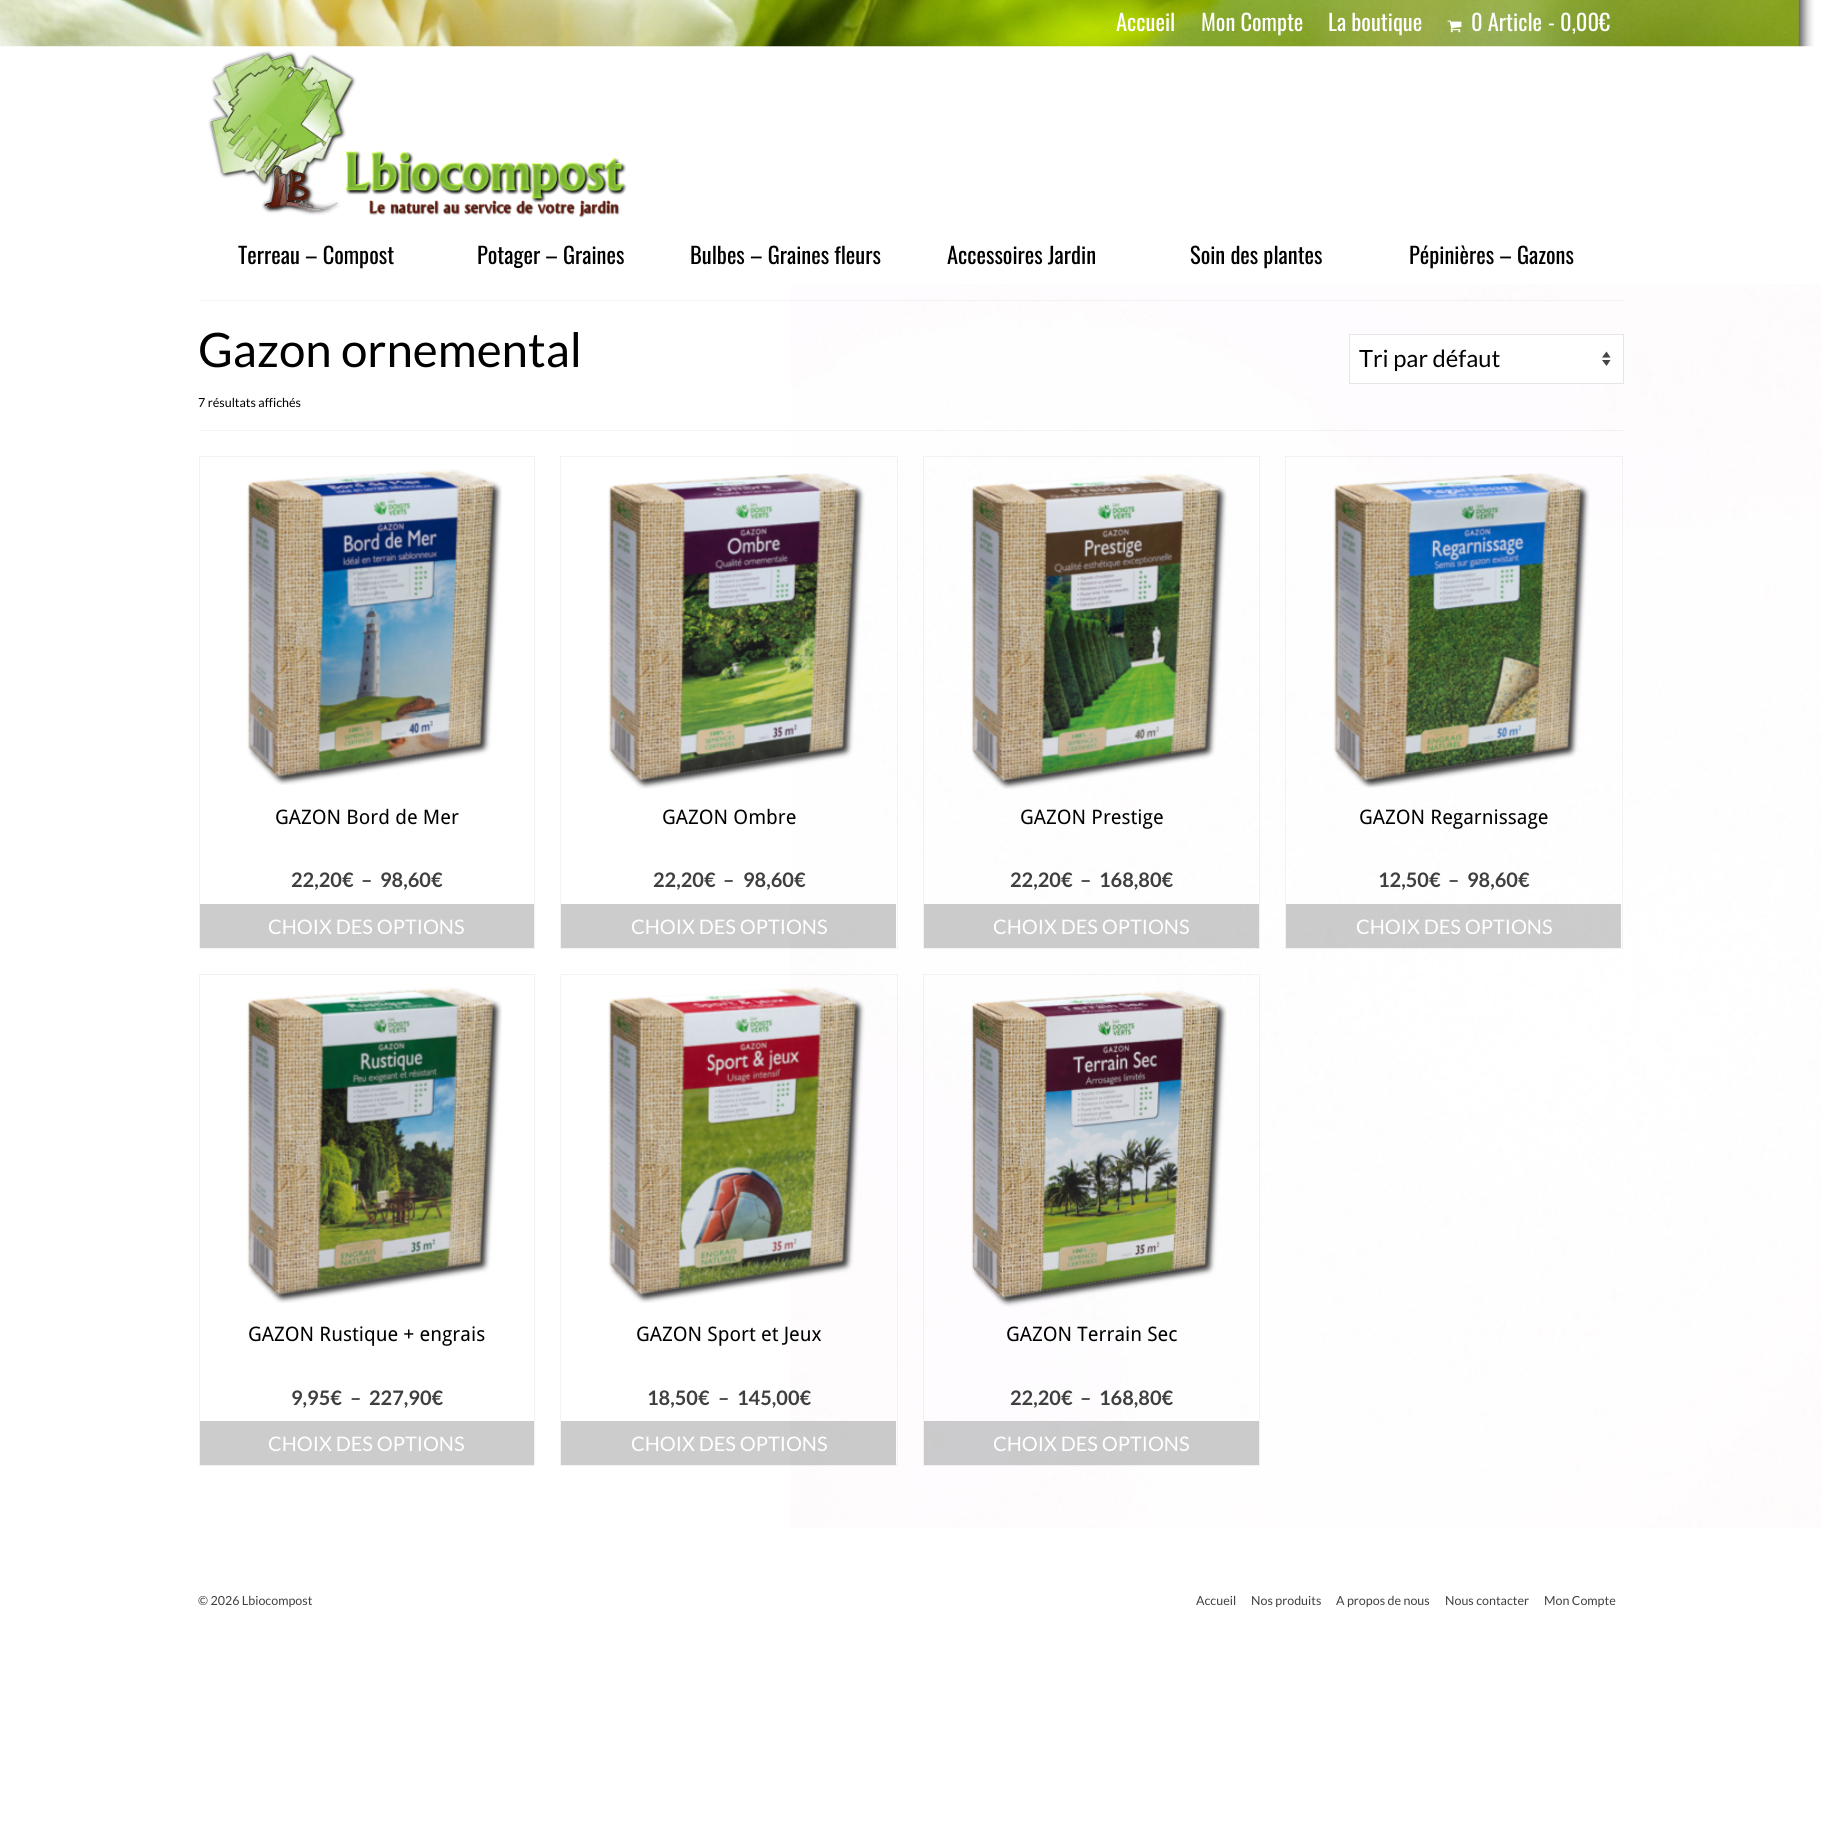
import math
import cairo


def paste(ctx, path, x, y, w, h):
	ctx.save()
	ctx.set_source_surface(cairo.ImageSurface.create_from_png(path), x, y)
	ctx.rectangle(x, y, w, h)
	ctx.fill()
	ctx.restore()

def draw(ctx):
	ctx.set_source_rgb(1, 1, 1)
	ctx.paint()
	paste(ctx, 'media/1.png', 0, 0, 1814, 47)
	ctx.select_font_face('Oswald')
	ctx.set_font_size(22.5)
	ctx.set_source_rgb(1, 1, 1)
	for x, y, s in [
		(1116, 31, 'Accueil'),
		(1201, 31, 'Mon Compte'),
		(1328, 31, 'La boutique'),
	]:
		ctx.move_to(x, y)
		ctx.show_text(s)
	paste(ctx, 'media/2.png', 1447, 20, 15, 13)
	for x, y, s in [
		(1471, 31, '0 Article'),
		(1548, 31, '-'),
		(1560, 31, '0,00€'),
	]:
		ctx.move_to(x, y)
		ctx.show_text(s)
	paste(ctx, 'media/3.png', 208, 51, 419, 167)
	ctx.set_source_rgb(0, 0, 0)
	for x, y, s in [
		(238, 264, 'Terreau – Compost'),
		(477, 264, 'Potager – Graines'),
		(690, 264, 'Bulbes – Graines fleurs'),
		(947, 264, 'Accessoires Jardin'),
		(1190, 264, 'Soin des plantes'),
		(1409, 264, 'Pépinières – Gazons'),
	]:
		ctx.move_to(x, y)
		ctx.show_text(s)
	paste(ctx, 'media/4.png', 790, 284, 1031, 1244)
	ctx.set_source_rgba(0, 0, 0, 0.05)
	ctx.rectangle(199, 300, 1425, 1)
	ctx.fill()
	ctx.rectangle(199, 430, 1425, 1)
	ctx.fill()
	ctx.select_font_face('Lato')
	ctx.set_font_size(47.5)
	ctx.set_source_rgb(0, 0, 0)
	ctx.move_to(198, 367)
	ctx.show_text('Gazon ornemental')
	ctx.set_source_rgb(1, 1, 1)
	ctx.rectangle(1350, 335, 273, 48)
	ctx.fill()
	ctx.set_source_rgb(0.267, 0.267, 0.267)
	ctx.new_path()
	ctx.move_to(1602, 357.5)
	ctx.line_to(1606.5, 351.5)
	ctx.line_to(1610.5, 357.5)
	ctx.close_path()
	ctx.move_to(1610.5, 360)
	ctx.line_to(1606.5, 366)
	ctx.line_to(1602, 360)
	ctx.close_path()
	ctx.fill()
	ctx.rectangle(1349.5, 334.5, 274, 49)
	ctx.set_source_rgb(0.902, 0.902, 0.902)
	ctx.set_line_width(1)
	ctx.stroke()
	ctx.set_font_size(23.75)
	ctx.set_source_rgb(0, 0, 0)
	ctx.move_to(1359, 367)
	ctx.show_text('Tri par défaut')
	ctx.set_font_size(12.5)
	ctx.move_to(198, 407)
	ctx.show_text('7 résultats affichés')
	ctx.rectangle(199.5, 456.5, 335, 492)
	ctx.set_source_rgb(0.949, 0.949, 0.949)
	ctx.stroke()
	paste(ctx, 'media/5.png', 247, 469, 255, 316)
	ctx.select_font_face('Droid Sans')
	ctx.set_font_size(20)
	ctx.set_source_rgb(0, 0, 0)
	ctx.move_to(275, 824)
	ctx.show_text('GAZON Bord de Mer')
	ctx.select_font_face('Lato', cairo.FONT_SLANT_NORMAL, cairo.FONT_WEIGHT_BOLD)
	ctx.set_source_rgb(0.247, 0.247, 0.247)
	for x, y, s in [
		(291, 887, '22,20€'),
		(361, 887, '–'),
		(380, 887, '98,60€'),
	]:
		ctx.move_to(x, y)
		ctx.show_text(s)
	ctx.set_source_rgb(0.8, 0.8, 0.8)
	ctx.rectangle(200, 904, 334, 44)
	ctx.fill()
	ctx.select_font_face('Lato')
	ctx.set_source_rgb(1, 1, 1)
	ctx.move_to(268, 934)
	ctx.show_text('CHOIX DES OPTIONS')
	ctx.rectangle(560.5, 456.5, 337, 492)
	ctx.set_source_rgba(0, 0, 0, 0.05)
	ctx.stroke()
	paste(ctx, 'media/6.png', 608, 473, 257, 316)
	ctx.select_font_face('Droid Sans')
	ctx.set_source_rgb(0, 0, 0)
	ctx.move_to(662, 824)
	ctx.show_text('GAZON Ombre')
	ctx.select_font_face('Lato', cairo.FONT_SLANT_NORMAL, cairo.FONT_WEIGHT_BOLD)
	ctx.set_source_rgb(0.247, 0.247, 0.247)
	for x, y, s in [
		(653, 887, '22,20€'),
		(723, 887, '–'),
		(743, 887, '98,60€'),
	]:
		ctx.move_to(x, y)
		ctx.show_text(s)
	ctx.set_source_rgba(0, 0, 0, 0.2)
	ctx.rectangle(561, 904, 335, 44)
	ctx.fill()
	ctx.select_font_face('Lato')
	ctx.set_source_rgb(1, 1, 1)
	ctx.move_to(631, 934)
	ctx.show_text('CHOIX DES OPTIONS')
	ctx.rectangle(923.5, 456.5, 336, 492)
	ctx.set_source_rgba(0, 0, 0, 0.05)
	ctx.stroke()
	paste(ctx, 'media/7.png', 971, 474, 256, 315)
	ctx.select_font_face('Droid Sans')
	ctx.set_source_rgb(0, 0, 0)
	ctx.move_to(1020, 824)
	ctx.show_text('GAZON Prestige')
	ctx.select_font_face('Lato', cairo.FONT_SLANT_NORMAL, cairo.FONT_WEIGHT_BOLD)
	ctx.set_source_rgb(0.247, 0.247, 0.247)
	for x, y, s in [
		(1010, 887, '22,20€'),
		(1080, 887, '–'),
		(1099, 887, '168,80€'),
	]:
		ctx.move_to(x, y)
		ctx.show_text(s)
	ctx.set_source_rgba(0, 0, 0, 0.2)
	ctx.rectangle(924, 904, 335, 44)
	ctx.fill()
	ctx.select_font_face('Lato')
	ctx.set_source_rgb(1, 1, 1)
	ctx.move_to(993, 934)
	ctx.show_text('CHOIX DES OPTIONS')
	ctx.rectangle(1285.5, 456.5, 337, 492)
	ctx.set_source_rgba(0, 0, 0, 0.05)
	ctx.stroke()
	paste(ctx, 'media/8.png', 1333, 473, 257, 315)
	ctx.select_font_face('Droid Sans')
	ctx.set_source_rgb(0, 0, 0)
	ctx.move_to(1359, 824)
	ctx.show_text('GAZON Regarnissage')
	ctx.select_font_face('Lato', cairo.FONT_SLANT_NORMAL, cairo.FONT_WEIGHT_BOLD)
	ctx.set_source_rgb(0.247, 0.247, 0.247)
	for x, y, s in [
		(1378, 887, '12,50€'),
		(1448, 887, '–'),
		(1467, 887, '98,60€'),
	]:
		ctx.move_to(x, y)
		ctx.show_text(s)
	ctx.set_source_rgba(0, 0, 0, 0.2)
	ctx.rectangle(1286, 904, 335, 44)
	ctx.fill()
	ctx.select_font_face('Lato')
	ctx.set_source_rgb(1, 1, 1)
	ctx.move_to(1356, 934)
	ctx.show_text('CHOIX DES OPTIONS')
	ctx.rectangle(199.5, 974.5, 335, 491)
	ctx.set_source_rgb(0.949, 0.949, 0.949)
	ctx.stroke()
	paste(ctx, 'media/9.png', 247, 987, 255, 316)
	ctx.select_font_face('Droid Sans')
	ctx.set_source_rgb(0, 0, 0)
	ctx.move_to(248, 1341)
	ctx.show_text('GAZON Rustique + engrais')
	ctx.select_font_face('Lato', cairo.FONT_SLANT_NORMAL, cairo.FONT_WEIGHT_BOLD)
	ctx.set_source_rgb(0.247, 0.247, 0.247)
	for x, y, s in [
		(291, 1405, '9,95€'),
		(350, 1405, '–'),
		(369, 1405, '227,90€'),
	]:
		ctx.move_to(x, y)
		ctx.show_text(s)
	ctx.set_source_rgb(0.8, 0.8, 0.8)
	ctx.rectangle(200, 1421, 334, 44)
	ctx.fill()
	ctx.select_font_face('Lato')
	ctx.set_source_rgb(1, 1, 1)
	ctx.move_to(268, 1451)
	ctx.show_text('CHOIX DES OPTIONS')
	ctx.rectangle(560.5, 974.5, 337, 491)
	ctx.set_source_rgba(0, 0, 0, 0.05)
	ctx.stroke()
	paste(ctx, 'media/10.png', 608, 987, 257, 316)
	ctx.select_font_face('Droid Sans')
	ctx.set_source_rgb(0, 0, 0)
	ctx.move_to(636, 1341)
	ctx.show_text('GAZON Sport et Jeux')
	ctx.select_font_face('Lato', cairo.FONT_SLANT_NORMAL, cairo.FONT_WEIGHT_BOLD)
	ctx.set_source_rgb(0.247, 0.247, 0.247)
	for x, y, s in [
		(647, 1405, '18,50€'),
		(718, 1405, '–'),
		(737, 1405, '145,00€'),
	]:
		ctx.move_to(x, y)
		ctx.show_text(s)
	ctx.set_source_rgba(0, 0, 0, 0.2)
	ctx.rectangle(561, 1421, 335, 44)
	ctx.fill()
	ctx.select_font_face('Lato')
	ctx.set_source_rgb(1, 1, 1)
	ctx.move_to(631, 1451)
	ctx.show_text('CHOIX DES OPTIONS')
	ctx.rectangle(923.5, 974.5, 336, 491)
	ctx.set_source_rgba(0, 0, 0, 0.05)
	ctx.stroke()
	paste(ctx, 'media/11.png', 971, 990, 256, 317)
	ctx.select_font_face('Droid Sans')
	ctx.set_source_rgb(0, 0, 0)
	ctx.move_to(1006, 1341)
	ctx.show_text('GAZON Terrain Sec')
	ctx.select_font_face('Lato', cairo.FONT_SLANT_NORMAL, cairo.FONT_WEIGHT_BOLD)
	ctx.set_source_rgb(0.247, 0.247, 0.247)
	for x, y, s in [
		(1010, 1405, '22,20€'),
		(1080, 1405, '–'),
		(1099, 1405, '168,80€'),
	]:
		ctx.move_to(x, y)
		ctx.show_text(s)
	ctx.set_source_rgba(0, 0, 0, 0.2)
	ctx.rectangle(924, 1421, 335, 44)
	ctx.fill()
	ctx.select_font_face('Lato')
	ctx.set_source_rgb(1, 1, 1)
	ctx.move_to(993, 1451)
	ctx.show_text('CHOIX DES OPTIONS')
	ctx.set_font_size(12.5)
	ctx.set_source_rgb(0.247, 0.247, 0.247)
	for x, y, s in [
		(198, 1605, '© 2026 Lbiocompost'),
		(1196, 1605, 'Accueil'),
		(1251, 1605, 'Nos produits'),
		(1336, 1605, 'A propos de nous'),
		(1445, 1605, 'Nous contacter'),
		(1544, 1605, 'Mon Compte'),
	]:
		ctx.move_to(x, y)
		ctx.show_text(s)


surface = cairo.ImageSurface(cairo.FORMAT_RGB24, 1821, 1832)
ctx = cairo.Context(surface)
options = cairo.FontOptions()
options.set_hint_metrics(cairo.HINT_METRICS_OFF)
options.set_hint_style(cairo.HINT_STYLE_NONE)
ctx.set_font_options(options)
ctx.set_miter_limit(4)
draw(ctx)
surface.write_to_png('image.png')
